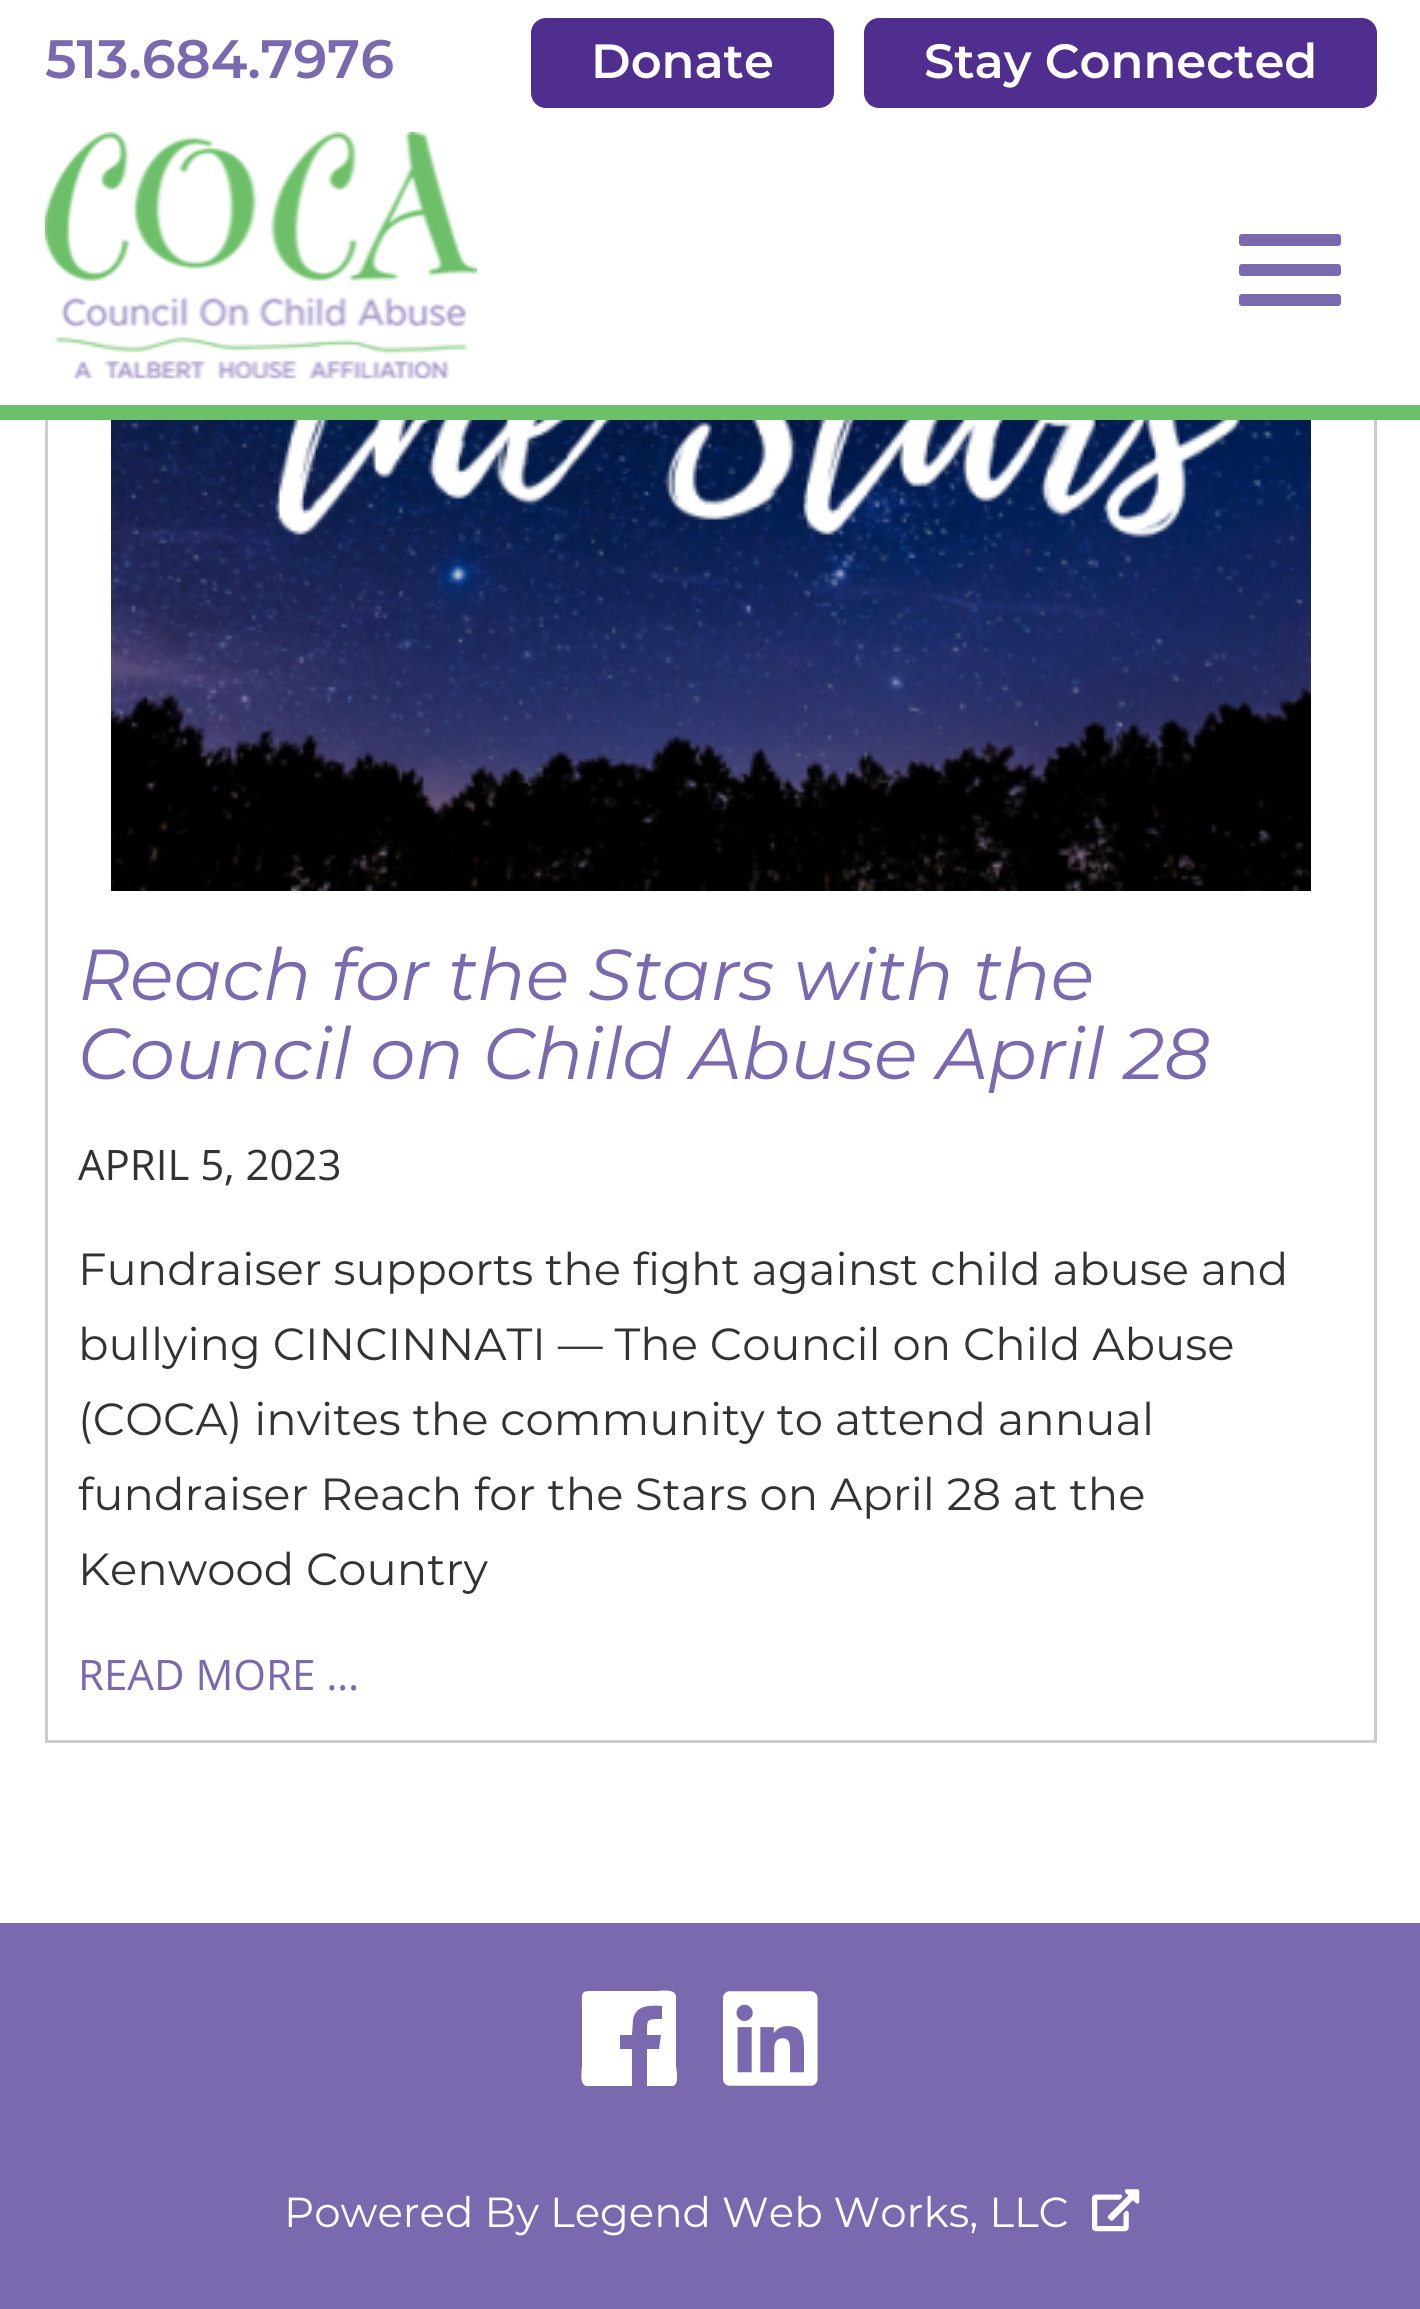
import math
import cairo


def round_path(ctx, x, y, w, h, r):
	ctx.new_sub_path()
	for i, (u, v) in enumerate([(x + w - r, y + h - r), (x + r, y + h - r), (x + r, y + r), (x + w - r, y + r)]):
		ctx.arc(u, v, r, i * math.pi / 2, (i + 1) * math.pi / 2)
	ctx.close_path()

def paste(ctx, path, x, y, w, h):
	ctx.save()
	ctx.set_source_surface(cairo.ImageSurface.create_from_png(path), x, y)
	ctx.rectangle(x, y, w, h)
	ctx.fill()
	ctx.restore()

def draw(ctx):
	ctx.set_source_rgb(1, 1, 1)
	ctx.paint()
	ctx.rectangle(46.5, -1.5, 1329, 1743)
	ctx.set_source_rgb(0.8, 0.8, 0.8)
	ctx.set_line_width(3)
	ctx.stroke()
	ctx.set_source_rgb(1, 1, 1)
	ctx.rectangle(45, 0, 1332, 405)
	ctx.fill()
	ctx.select_font_face('Montserrat SemiBold')
	ctx.set_font_size(54)
	ctx.set_source_rgb(0.478, 0.412, 0.686)
	ctx.move_to(45, 78)
	ctx.show_text('513.684.7976')
	ctx.set_source_rgb(0.314, 0.18, 0.561)
	round_path(ctx, 531, 18, 303, 90, 15)
	ctx.fill()
	ctx.set_font_size(48)
	ctx.set_source_rgb(1, 1, 1)
	ctx.move_to(591, 78)
	ctx.show_text('Donate')
	ctx.set_source_rgb(0.314, 0.18, 0.561)
	round_path(ctx, 864, 18, 513, 90, 15)
	ctx.fill()
	ctx.set_source_rgb(1, 1, 1)
	ctx.move_to(924, 78)
	ctx.show_text('Stay Connected')
	ctx.set_source_rgb(0.424, 0.753, 0.416)
	ctx.rectangle(0, 405, 1420, 15)
	ctx.fill()
	paste(ctx, 'media/1.png', 45, 132, 432, 247)
	ctx.set_source_rgb(0.478, 0.412, 0.686)
	round_path(ctx, 1239, 234, 102, 12, 3)
	ctx.fill()
	round_path(ctx, 1239, 264, 102, 12, 3)
	ctx.fill()
	round_path(ctx, 1239, 294, 102, 12, 3)
	ctx.fill()
	paste(ctx, 'media/2.png', 111, 420, 1200, 471)
	ctx.select_font_face('Montserrat', cairo.FONT_SLANT_ITALIC)
	ctx.set_font_size(72)
	ctx.move_to(78, 1000)
	ctx.show_text('Reach for the Stars with the')
	ctx.move_to(78, 1079)
	ctx.show_text('Council on Child Abuse April 28')
	ctx.select_font_face('Open Sans')
	ctx.set_font_size(42)
	ctx.set_source_rgb(0.2, 0.2, 0.2)
	ctx.move_to(78, 1180)
	ctx.show_text('APRIL 5, 2023')
	ctx.select_font_face('Montserrat')
	ctx.set_font_size(45)
	for x, y, s in [
		(78, 1285, 'Fundraiser supports the fight against child abuse and'),
		(78, 1360, 'bullying CINCINNATI — The Council on Child Abuse'),
		(78, 1435, '(COCA) invites the community to attend annual'),
		(78, 1510, 'fundraiser Reach for the Stars on April 28 at the'),
		(78, 1585, 'Kenwood Country'),
	]:
		ctx.move_to(x, y)
		ctx.show_text(s)
	ctx.select_font_face('Open Sans')
	ctx.set_font_size(42)
	ctx.set_source_rgb(0.478, 0.412, 0.686)
	ctx.move_to(78, 1690)
	ctx.show_text('READ MORE …')
	ctx.rectangle(0, 1923, 1420, 386)
	ctx.fill()
	ctx.set_source_rgb(1, 1, 1)
	ctx.new_path()
	ctx.move_to(676, 1997)
	ctx.line_to(676, 2066)
	ctx.curve_to(676, 2069, 680, 2084, 673, 2086)
	ctx.line_to(647, 2086)
	ctx.line_to(647, 2049)
	ctx.line_to(659, 2049)
	ctx.line_to(661, 2035)
	ctx.line_to(647, 2035)
	ctx.curve_to(647, 2019, 646, 2019, 662, 2019)
	ctx.line_to(662, 2006)
	ctx.curve_to(650, 2005, 635, 2005, 633, 2020)
	ctx.line_to(632, 2035)
	ctx.line_to(620, 2035)
	ctx.line_to(620, 2049)
	ctx.line_to(632, 2049)
	ctx.line_to(632, 2086)
	ctx.line_to(586, 2086)
	ctx.curve_to(579, 2084, 582, 2069, 582, 2066)
	ctx.line_to(582, 2011)
	ctx.curve_to(582, 1989, 579, 1991, 601, 1991)
	ctx.line_to(657, 1991)
	ctx.curve_to(660, 1991, 676, 1988, 676, 1997)
	ctx.close_path()
	ctx.fill()
	paste(ctx, 'media/3.png', 723, 1991, 95, 95)
	ctx.select_font_face('Montserrat')
	ctx.move_to(284, 2227)
	ctx.show_text('Powered By Legend Web Works, LLC')
	paste(ctx, 'media/4.png', 1092, 2189, 48, 43)


surface = cairo.ImageSurface(cairo.FORMAT_RGB24, 1420, 2309)
ctx = cairo.Context(surface)
options = cairo.FontOptions()
options.set_hint_metrics(cairo.HINT_METRICS_OFF)
options.set_hint_style(cairo.HINT_STYLE_NONE)
ctx.set_font_options(options)
ctx.set_miter_limit(4)
draw(ctx)
surface.write_to_png('image.png')
